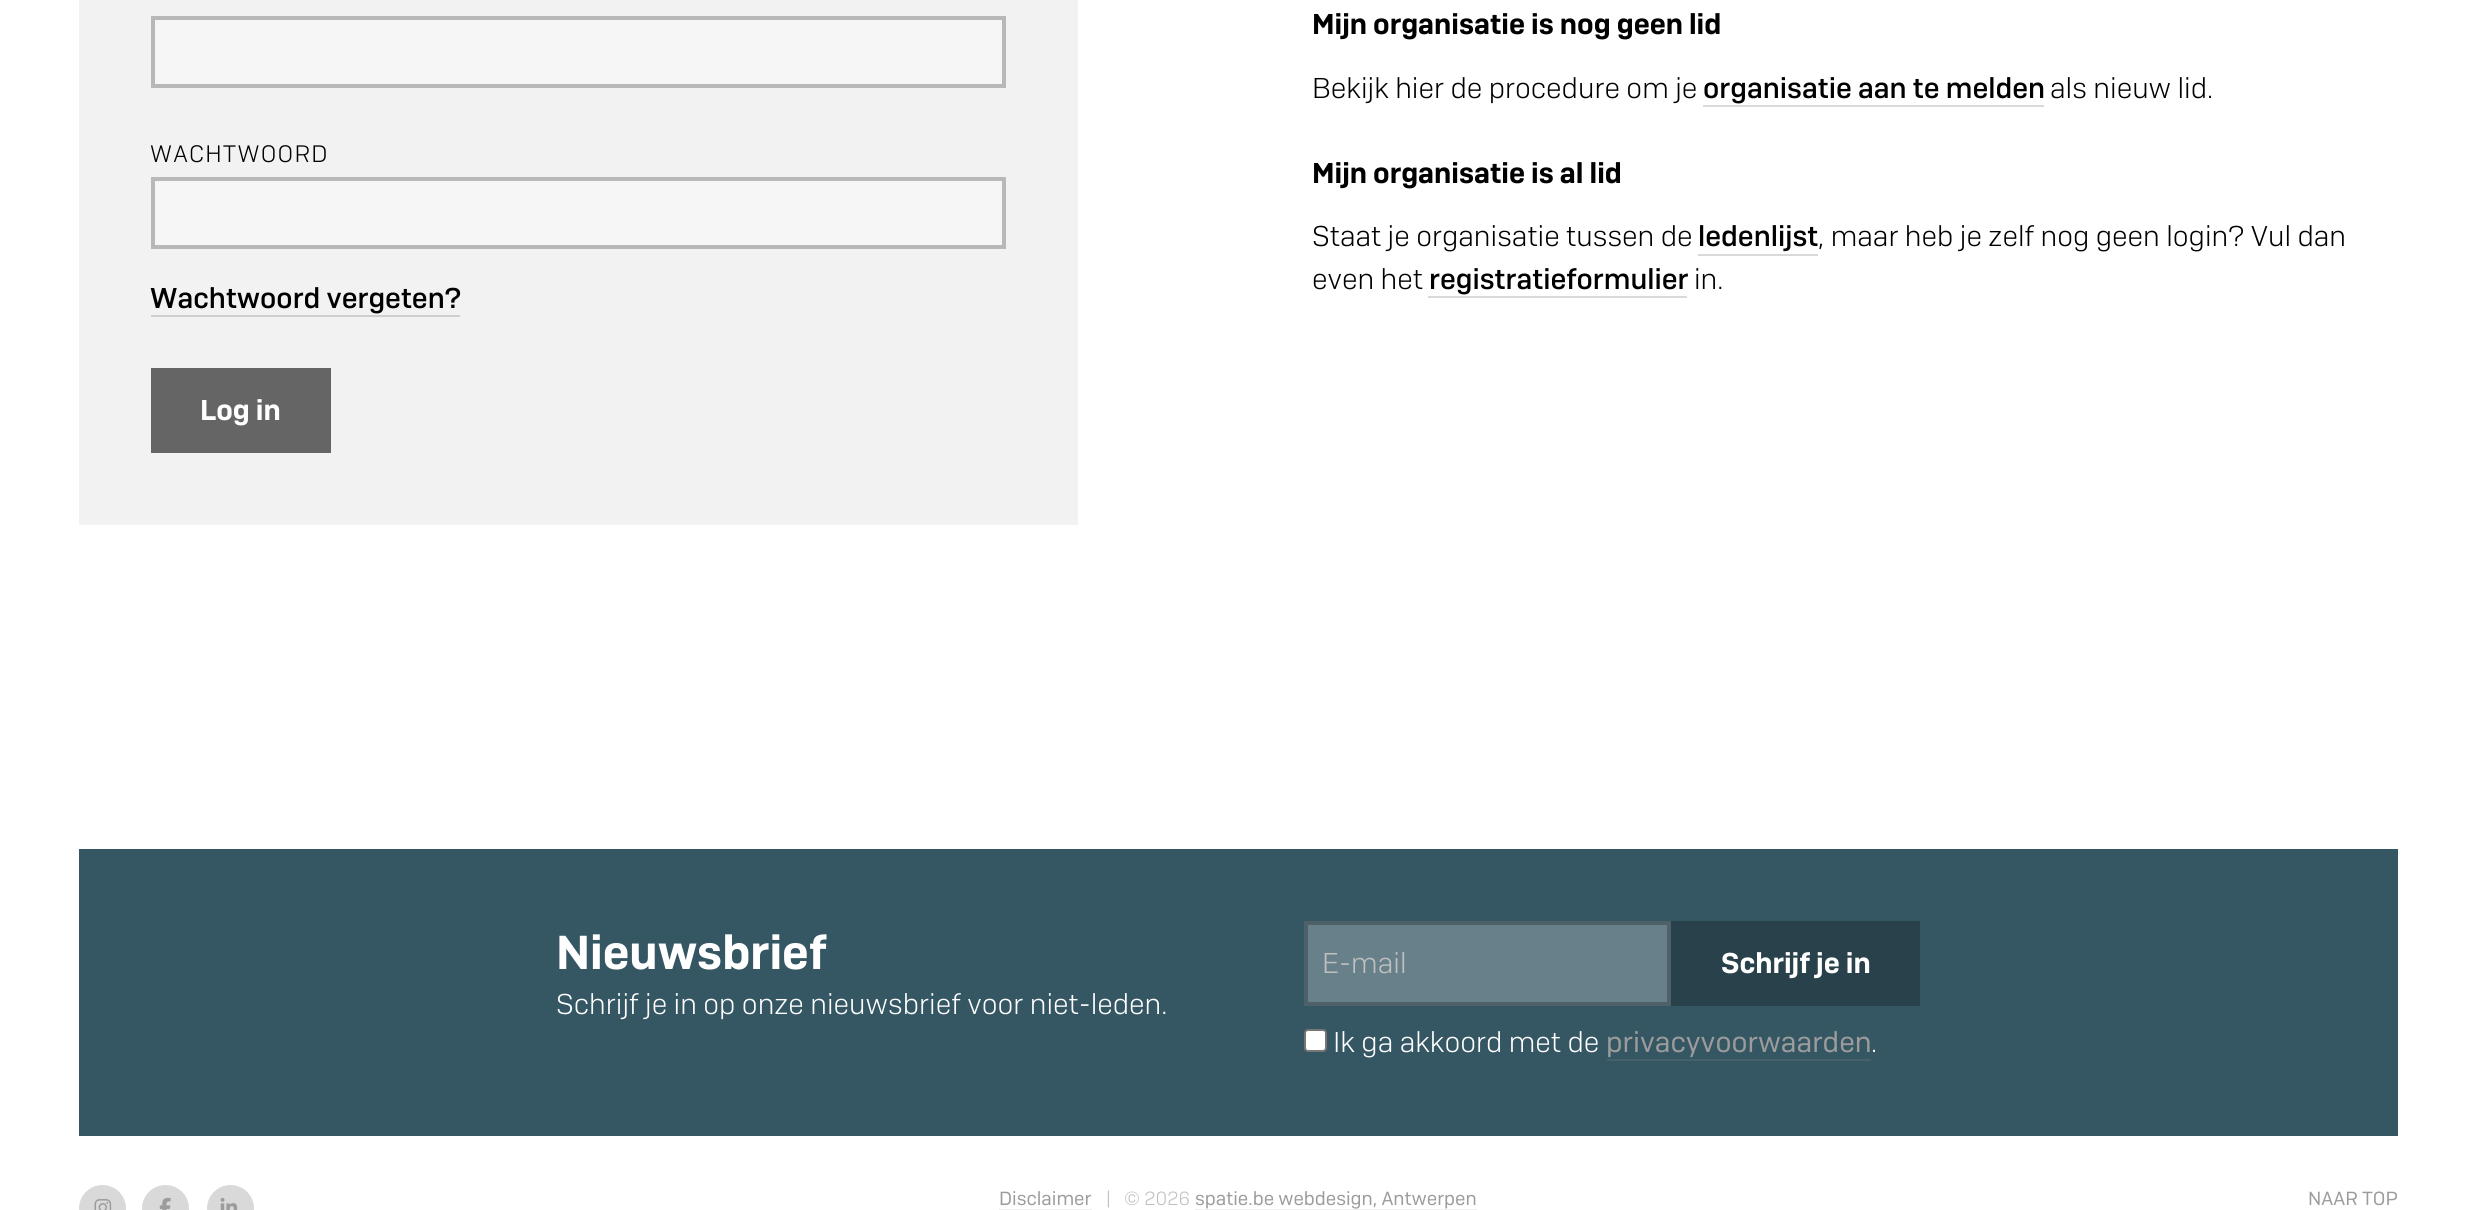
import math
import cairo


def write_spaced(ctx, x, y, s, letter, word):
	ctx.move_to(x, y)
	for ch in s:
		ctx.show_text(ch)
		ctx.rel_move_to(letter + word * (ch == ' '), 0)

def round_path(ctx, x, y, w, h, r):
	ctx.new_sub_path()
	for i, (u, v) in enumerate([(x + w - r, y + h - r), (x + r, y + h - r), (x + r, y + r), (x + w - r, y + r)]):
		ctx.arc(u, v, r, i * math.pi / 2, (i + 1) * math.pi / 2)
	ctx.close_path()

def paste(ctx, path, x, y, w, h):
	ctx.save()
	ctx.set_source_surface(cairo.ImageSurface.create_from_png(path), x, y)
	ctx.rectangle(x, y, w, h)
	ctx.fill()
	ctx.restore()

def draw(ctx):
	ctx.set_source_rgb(1, 1, 1)
	ctx.paint()
	ctx.set_source_rgb(0.949, 0.949, 0.949)
	ctx.rectangle(79, 0, 999, 525)
	ctx.fill()
	ctx.set_source_rgb(0.961, 0.961, 0.961)
	ctx.rectangle(153, 18, 851, 68)
	ctx.fill_preserve()
	ctx.set_source_rgb(0.722, 0.722, 0.722)
	ctx.set_line_width(4)
	ctx.stroke()
	ctx.select_font_face('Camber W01 Light')
	ctx.set_font_size(23.75)
	ctx.set_source_rgb(0, 0, 0)
	write_spaced(ctx, 150, 162, 'WACHTWOORD', 1.25, 0)
	ctx.set_source_rgb(0.961, 0.961, 0.961)
	ctx.rectangle(153, 179, 851, 68)
	ctx.fill_preserve()
	ctx.set_source_rgb(0.722, 0.722, 0.722)
	ctx.stroke()
	ctx.select_font_face('Camber W01 Medium')
	ctx.set_font_size(28.6)
	ctx.set_source_rgb(0, 0, 0)
	ctx.move_to(150, 308)
	ctx.show_text('Wachtwoord vergeten?')
	ctx.set_source_rgb(0.808, 0.808, 0.808)
	ctx.rectangle(151, 315, 309, 2)
	ctx.fill()
	ctx.set_source_rgb(0.396, 0.396, 0.396)
	ctx.rectangle(151, 368, 180, 85)
	ctx.fill()
	ctx.select_font_face('Camber W01 SemiBold')
	ctx.set_source_rgb(1, 1, 1)
	ctx.move_to(200, 420)
	ctx.show_text('Log in')
	ctx.set_source_rgb(0, 0, 0)
	ctx.move_to(1312, 34)
	ctx.show_text('Mijn organisatie is nog geen lid')
	ctx.select_font_face('Camber W01 Light')
	ctx.move_to(1312, 98)
	ctx.show_text('Bekijk hier de procedure om je')
	ctx.select_font_face('Camber W01 Medium')
	ctx.move_to(1703, 98)
	ctx.show_text('organisatie aan te melden')
	ctx.set_source_rgb(0.851, 0.851, 0.851)
	ctx.rectangle(1703, 105, 341, 2)
	ctx.fill()
	ctx.select_font_face('Camber W01 Light')
	ctx.set_source_rgb(0, 0, 0)
	ctx.move_to(2050, 98)
	ctx.show_text('als nieuw lid.')
	ctx.select_font_face('Camber W01 SemiBold')
	ctx.move_to(1312, 183)
	ctx.show_text('Mijn organisatie is al lid')
	ctx.select_font_face('Camber W01 Light')
	ctx.move_to(1312, 246)
	ctx.show_text('Staat je organisatie tussen de')
	ctx.select_font_face('Camber W01 Medium')
	ctx.move_to(1698, 246)
	ctx.show_text('ledenlijst')
	ctx.set_source_rgb(0.851, 0.851, 0.851)
	ctx.rectangle(1698, 254, 120, 2)
	ctx.fill()
	ctx.select_font_face('Camber W01 Light')
	ctx.set_source_rgb(0, 0, 0)
	ctx.move_to(1818, 246)
	ctx.show_text(', maar heb je zelf nog geen login? Vul dan')
	ctx.move_to(1312, 289)
	ctx.show_text('even het')
	ctx.select_font_face('Camber W01 Medium')
	ctx.move_to(1429, 289)
	ctx.show_text('registratieformulier')
	ctx.set_source_rgb(0.851, 0.851, 0.851)
	ctx.rectangle(1428, 296, 259, 2)
	ctx.fill()
	ctx.select_font_face('Camber W01 Light')
	ctx.set_source_rgb(0, 0, 0)
	ctx.move_to(1694, 289)
	ctx.show_text('in.')
	ctx.set_source_rgb(0.208, 0.337, 0.388)
	ctx.rectangle(79, 849, 2319, 287)
	ctx.fill()
	ctx.select_font_face('Camber W01 SemiBold')
	ctx.set_font_size(47.5)
	ctx.set_source_rgb(1, 1, 1)
	ctx.move_to(556, 969)
	ctx.show_text('Nieuwsbrief')
	ctx.select_font_face('Camber W01 Light')
	ctx.set_font_size(28.6)
	ctx.move_to(556, 1014)
	ctx.show_text('Schrijf je in op onze nieuwsbrief voor niet-leden.')
	ctx.set_source_rgb(0.408, 0.502, 0.541)
	ctx.rectangle(1306, 923, 363, 81)
	ctx.fill_preserve()
	ctx.set_source_rgb(0.306, 0.376, 0.408)
	ctx.stroke()
	ctx.set_source_rgb(0.753, 0.753, 0.753)
	ctx.move_to(1322, 973)
	ctx.show_text('E-mail')
	ctx.set_source_rgb(0.157, 0.255, 0.29)
	ctx.rectangle(1671, 921, 249, 85)
	ctx.fill()
	ctx.select_font_face('Camber W01 SemiBold')
	ctx.set_source_rgb(1, 1, 1)
	ctx.move_to(1721, 973)
	ctx.show_text('Schrijf je in')
	round_path(ctx, 1305, 1030, 21, 21, 3)
	ctx.fill_preserve()
	ctx.set_source_rgb(0.463, 0.463, 0.463)
	ctx.set_line_width(2)
	ctx.stroke()
	ctx.select_font_face('Camber W01 Light')
	ctx.set_source_rgb(1, 1, 1)
	ctx.move_to(1333, 1052)
	ctx.show_text('Ik ga akkoord met de')
	ctx.select_font_face('Camber W01')
	ctx.set_source_rgb(0.612, 0.612, 0.612)
	ctx.move_to(1606, 1052)
	ctx.show_text('privacyvoorwaarden')
	ctx.set_source_rgb(0.267, 0.38, 0.424)
	ctx.rectangle(1607, 1059, 264, 2)
	ctx.fill()
	ctx.select_font_face('Camber W01 Light')
	ctx.set_source_rgb(1, 1, 1)
	ctx.move_to(1871, 1052)
	ctx.show_text('.')
	ctx.set_source_rgb(0.851, 0.851, 0.851)
	ctx.new_path()
	ctx.arc(102.5, 1208.5, 23.5, 0, 2 * math.pi)
	ctx.fill()
	paste(ctx, 'media/1.png', 94, 1199, 18, 11)
	ctx.arc(165.5, 1208.5, 23.5, 0, 2 * math.pi)
	ctx.fill()
	paste(ctx, 'media/2.png', 159, 1197, 12, 13)
	ctx.arc(230.5, 1208.5, 23.5, 0, 2 * math.pi)
	ctx.fill()
	paste(ctx, 'media/3.png', 220, 1197, 18, 13)
	ctx.select_font_face('Camber W01')
	ctx.set_font_size(19)
	ctx.set_source_rgb(0.612, 0.612, 0.612)
	ctx.move_to(999, 1205)
	ctx.show_text('Disclaimer')
	ctx.set_source_rgb(0.941, 0.941, 0.941)
	ctx.rectangle(999, 1209, 93, 1)
	ctx.fill()
	ctx.select_font_face('Camber W01 Light')
	ctx.set_source_rgb(0.753, 0.753, 0.753)
	ctx.move_to(1106, 1205)
	ctx.show_text('|')
	ctx.move_to(1124, 1205)
	ctx.show_text('© 2026')
	ctx.select_font_face('Camber W01')
	ctx.set_source_rgb(0.612, 0.612, 0.612)
	ctx.move_to(1195, 1205)
	ctx.show_text('spatie.be webdesign, Antwerpen')
	ctx.set_source_rgb(0.941, 0.941, 0.941)
	ctx.rectangle(1195, 1209, 282, 1)
	ctx.fill()
	ctx.set_source_rgb(0.612, 0.612, 0.612)
	ctx.move_to(2308, 1205)
	ctx.show_text('NAAR TOP')


surface = cairo.ImageSurface(cairo.FORMAT_RGB24, 2475, 1210)
ctx = cairo.Context(surface)
options = cairo.FontOptions()
options.set_hint_metrics(cairo.HINT_METRICS_OFF)
options.set_hint_style(cairo.HINT_STYLE_NONE)
ctx.set_font_options(options)
ctx.set_miter_limit(4)
draw(ctx)
surface.write_to_png('image.png')
